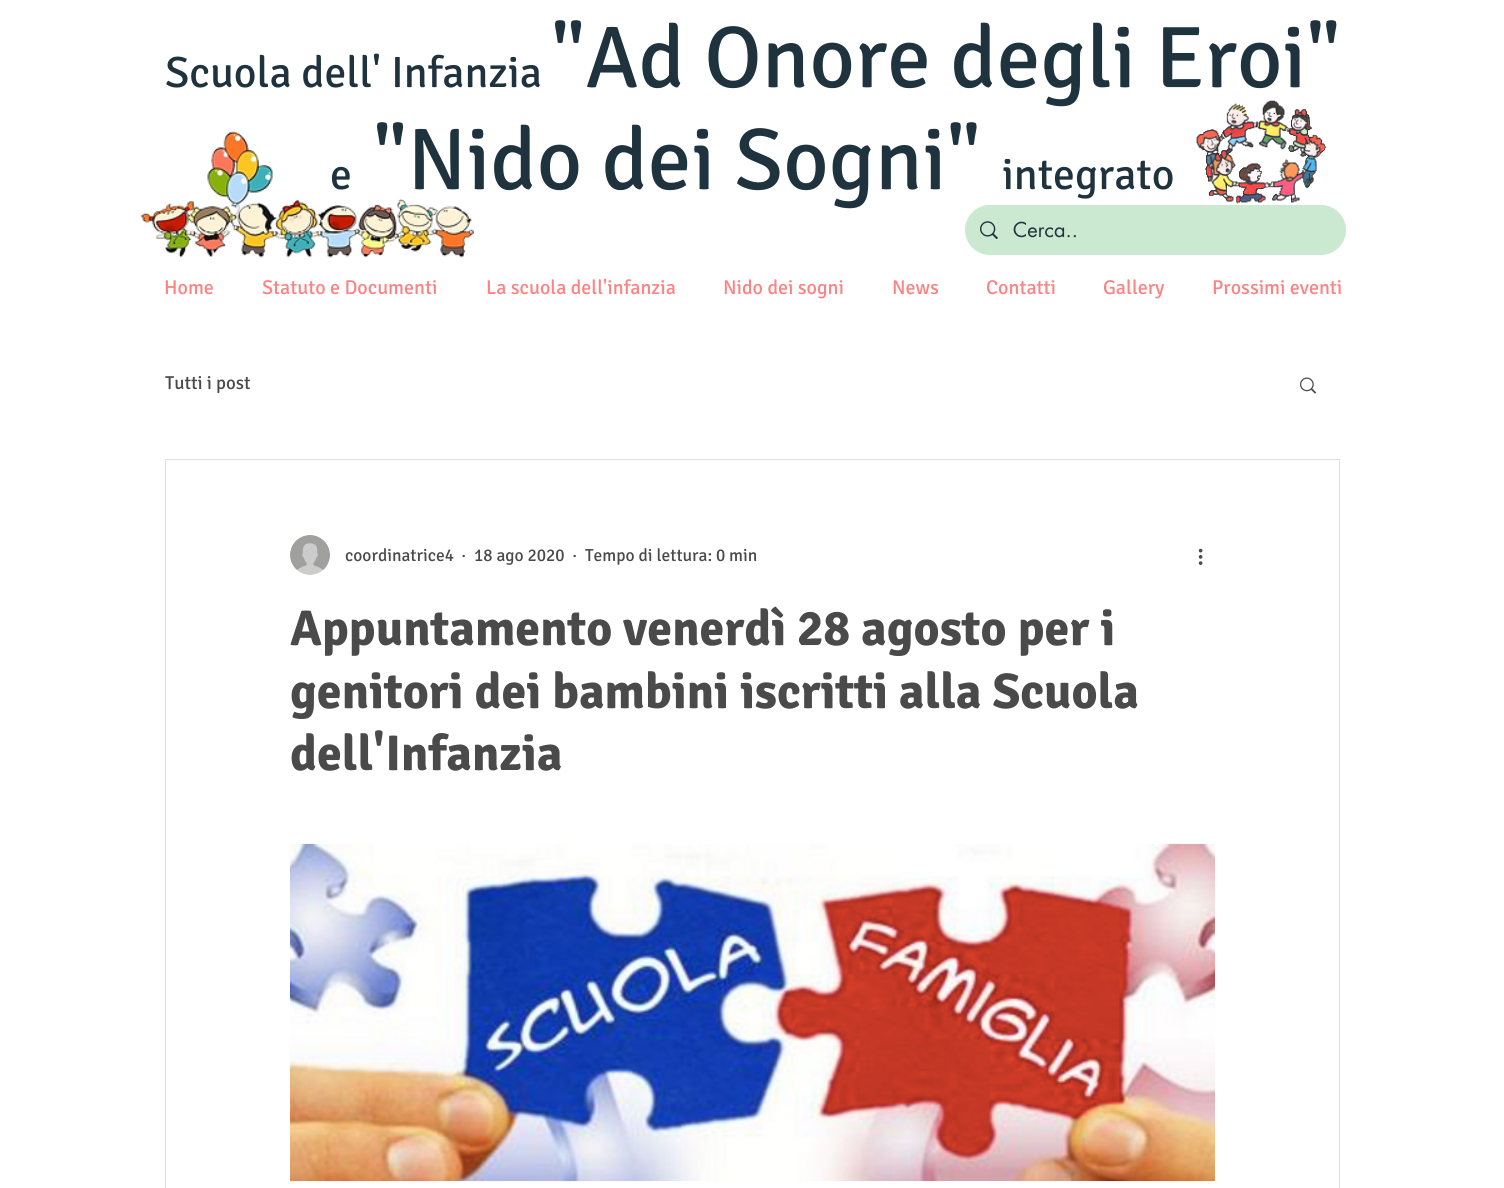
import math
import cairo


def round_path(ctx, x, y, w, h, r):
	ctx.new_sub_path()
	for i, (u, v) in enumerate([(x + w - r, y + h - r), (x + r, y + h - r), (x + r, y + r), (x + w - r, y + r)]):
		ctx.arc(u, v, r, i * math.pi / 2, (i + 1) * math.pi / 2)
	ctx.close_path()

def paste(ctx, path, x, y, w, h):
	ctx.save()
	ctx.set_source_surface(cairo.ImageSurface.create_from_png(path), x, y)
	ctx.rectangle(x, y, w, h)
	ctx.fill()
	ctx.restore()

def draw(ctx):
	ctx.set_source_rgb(1, 1, 1)
	ctx.paint()
	ctx.select_font_face('Signika')
	ctx.set_font_size(43.75)
	ctx.set_source_rgb(0.122, 0.2, 0.247)
	ctx.move_to(165, 87)
	ctx.show_text('Scuola dell\' Infanzia')
	ctx.set_font_size(87.5)
	ctx.move_to(551, 87)
	ctx.show_text('"Ad Onore degli Eroi"')
	ctx.set_font_size(43.75)
	ctx.move_to(330, 189)
	ctx.show_text('e')
	ctx.set_font_size(87.5)
	ctx.move_to(373, 189)
	ctx.show_text('"Nido dei Sogni"')
	ctx.set_font_size(43.75)
	ctx.move_to(1002, 189)
	ctx.show_text('integrato')
	paste(ctx, 'media/1.png', 141, 131, 333, 127)
	ctx.set_source_rgb(0.792, 0.914, 0.816)
	round_path(ctx, 965, 205, 381, 50, 25)
	ctx.fill()
	paste(ctx, 'media/2.png', 980, 221, 18, 18)
	ctx.select_font_face('futura')
	ctx.set_font_size(20)
	ctx.set_source_rgb(0.122, 0.2, 0.247)
	ctx.move_to(1013, 237)
	ctx.show_text('Cerca..')
	paste(ctx, 'media/3.png', 1196, 100, 130, 104)
	ctx.select_font_face('Signika')
	ctx.set_source_rgb(1, 0.51, 0.51)
	for x, y, s in [
		(164, 294, 'Home'),
		(262, 294, 'Statuto e Documenti'),
		(486, 294, 'La scuola dell\'infanzia'),
		(723, 294, 'Nido dei sogni'),
		(892, 294, 'News'),
		(986, 294, 'Contatti'),
		(1103, 294, 'Gallery'),
		(1212, 294, 'Prossimi eventi'),
	]:
		ctx.move_to(x, y)
		ctx.show_text(s)
	ctx.set_font_size(18.75)
	ctx.set_source_rgb(0.29, 0.29, 0.29)
	ctx.move_to(165, 389)
	ctx.show_text('Tutti i post')
	paste(ctx, 'media/4.png', 1300, 377, 17, 17)
	ctx.rectangle(165.5, 459.5, 1174, 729)
	ctx.set_source_rgb(0.878, 0.878, 0.878)
	ctx.set_line_width(1)
	ctx.stroke()
	paste(ctx, 'media/5.png', 290, 535, 40, 40)
	ctx.set_font_size(17.5)
	ctx.set_source_rgb(0.29, 0.29, 0.29)
	for x, y, s in [
		(345, 561, 'coordinatrice4'),
		(461, 561, '·'),
		(474, 561, '18 ago 2020'),
		(572, 561, '·'),
		(585, 561, 'Tempo di lettura: 0 min'),
	]:
		ctx.move_to(x, y)
		ctx.show_text(s)
	paste(ctx, 'media/6.png', 1198, 548, 5, 17)
	ctx.select_font_face('Signika', cairo.FONT_SLANT_NORMAL, cairo.FONT_WEIGHT_BOLD)
	ctx.set_font_size(50)
	for x, y, s in [
		(290, 645, 'Appuntamento venerdì 28 agosto per i'),
		(290, 708, 'genitori dei bambini iscritti alla Scuola'),
		(290, 770, 'dell\'Infanzia'),
	]:
		ctx.move_to(x, y)
		ctx.show_text(s)
	paste(ctx, 'media/7.png', 290, 843, 925, 339)


surface = cairo.ImageSurface(cairo.FORMAT_RGB24, 1504, 1188)
ctx = cairo.Context(surface)
options = cairo.FontOptions()
options.set_hint_metrics(cairo.HINT_METRICS_OFF)
options.set_hint_style(cairo.HINT_STYLE_NONE)
ctx.set_font_options(options)
ctx.set_miter_limit(4)
draw(ctx)
surface.write_to_png('image.png')
